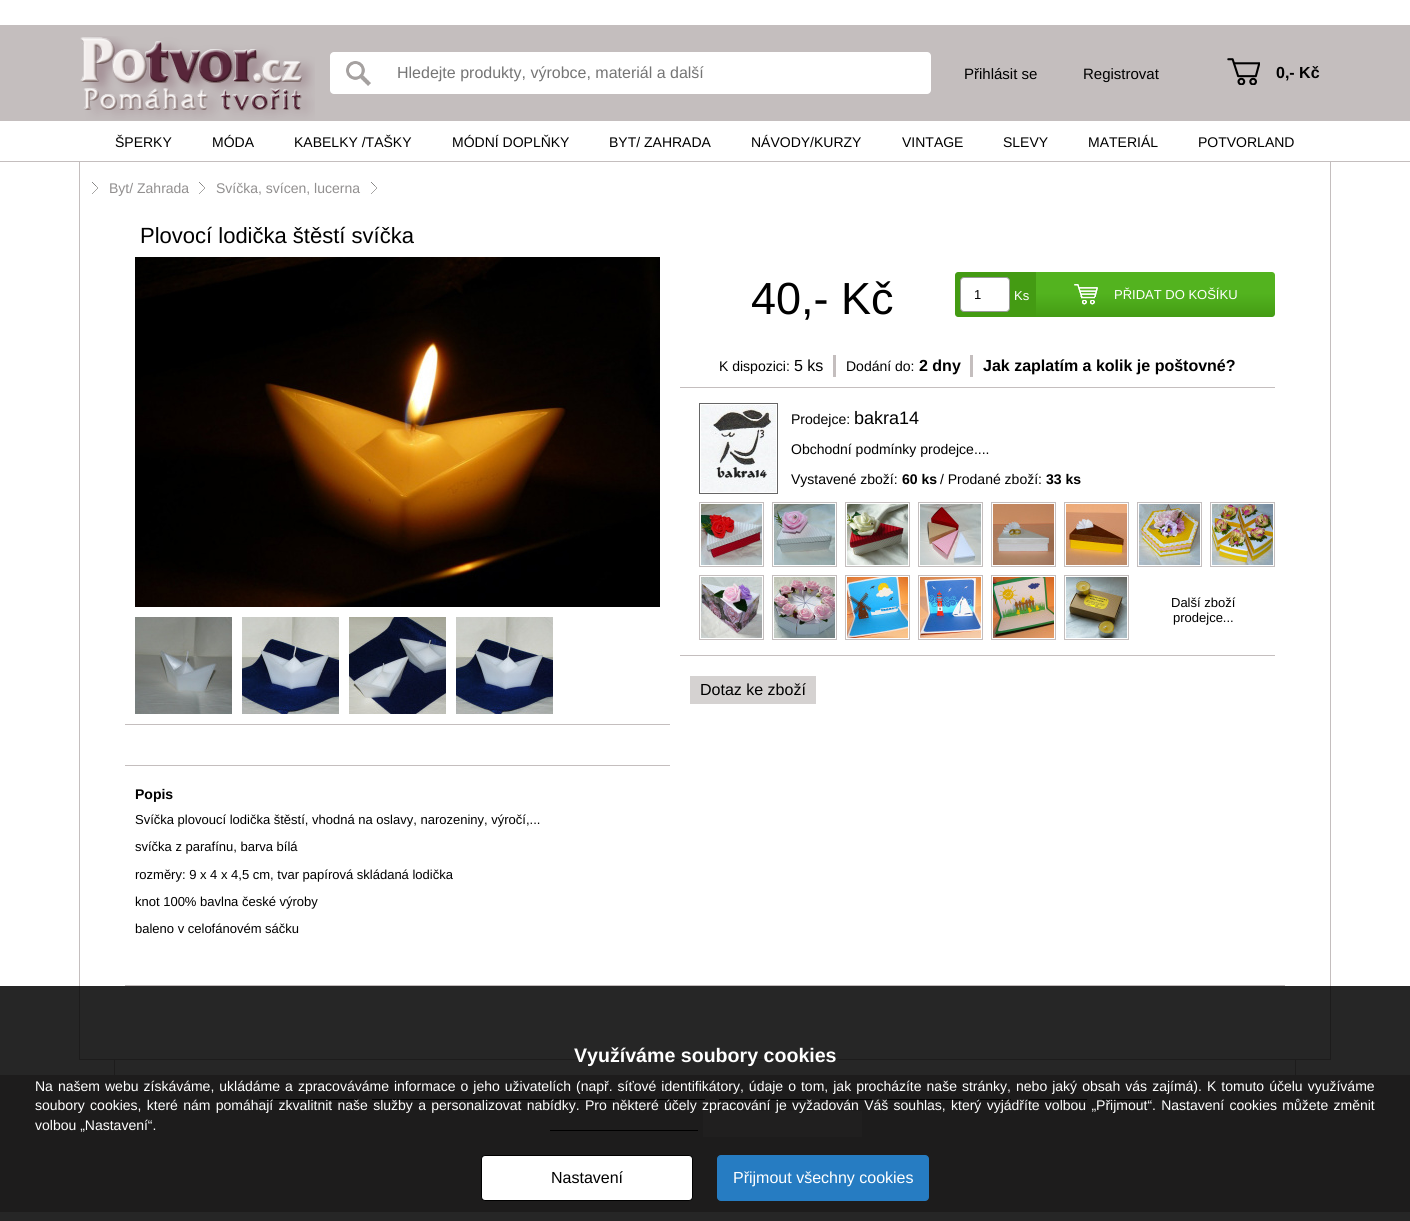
import math
import cairo


def write_spaced(ctx, x, y, s, letter, word):
	ctx.move_to(x, y)
	for ch in s:
		ctx.show_text(ch)
		ctx.rel_move_to(letter + word * (ch == ' '), 0)

def round_path(ctx, x, y, w, h, r):
	ctx.new_sub_path()
	for i, (u, v) in enumerate([(x + w - r, y + h - r), (x + r, y + h - r), (x + r, y + r), (x + w - r, y + r)]):
		ctx.arc(u, v, r, i * math.pi / 2, (i + 1) * math.pi / 2)
	ctx.close_path()

def paste(ctx, path, x, y, w, h):
	ctx.save()
	ctx.set_source_surface(cairo.ImageSurface.create_from_png(path), x, y)
	ctx.rectangle(x, y, w, h)
	ctx.fill()
	ctx.restore()

def draw(ctx):
	ctx.set_source_rgb(1, 1, 1)
	ctx.paint()
	ctx.set_source_rgb(0.769, 0.745, 0.745)
	ctx.rectangle(0, 25, 1410, 96)
	ctx.fill()
	paste(ctx, 'media/1.png', 80, 36, 235, 84)
	ctx.set_source_rgb(1, 1, 1)
	round_path(ctx, 330, 52, 601, 42, 4)
	ctx.fill()
	paste(ctx, 'media/2.png', 346, 61, 25, 25)
	ctx.select_font_face('Liberation Sans')
	ctx.set_font_size(16)
	ctx.set_source_rgb(0.459, 0.459, 0.459)
	ctx.move_to(397, 78)
	ctx.show_text('Hledejte produkty, výrobce, materiál a další')
	ctx.select_font_face('Arimo')
	ctx.set_font_size(15)
	ctx.set_source_rgb(0, 0, 0)
	ctx.move_to(964, 79)
	ctx.show_text('Přihlásit se')
	ctx.move_to(1083, 79)
	ctx.show_text('Registrovat')
	paste(ctx, 'media/3.png', 1227, 58, 33, 27)
	ctx.select_font_face('Arimo', cairo.FONT_SLANT_NORMAL, cairo.FONT_WEIGHT_BOLD)
	ctx.set_font_size(16)
	ctx.move_to(1276, 78)
	ctx.show_text('0,- Kč')
	ctx.set_source_rgb(0.769, 0.745, 0.745)
	ctx.rectangle(0, 161, 1410, 1)
	ctx.fill()
	ctx.select_font_face('Arimo')
	ctx.set_font_size(14)
	ctx.set_source_rgb(0, 0, 0)
	for x, y, s in [
		(115, 147, 'ŠPERKY'),
		(212, 147, 'MÓDA'),
		(294, 147, 'KABELKY /TAŠKY'),
		(452, 147, 'MÓDNÍ DOPLŇKY'),
		(609, 147, 'BYT/ ZAHRADA'),
		(751, 147, 'NÁVODY/KURZY'),
		(902, 147, 'VINTAGE'),
		(1003, 147, 'SLEVY'),
		(1088, 147, 'MATERIÁL'),
		(1198, 147, 'POTVORLAND'),
	]:
		ctx.move_to(x, y)
		ctx.show_text(s)
	ctx.rectangle(79.5, 161.5, 1251, 898)
	ctx.set_source_rgb(0.769, 0.745, 0.745)
	ctx.set_line_width(1)
	ctx.stroke()
	paste(ctx, 'media/4.png', 92, 182, 6, 12)
	ctx.set_source_rgb(0.569, 0.561, 0.561)
	ctx.move_to(109, 193)
	ctx.show_text('Byt/ Zahrada')
	paste(ctx, 'media/4.png', 199, 182, 6, 12)
	ctx.move_to(216, 193)
	ctx.show_text('Svíčka, svícen, lucerna')
	paste(ctx, 'media/4.png', 371, 182, 6, 12)
	ctx.set_font_size(22)
	ctx.set_source_rgb(0, 0, 0)
	ctx.move_to(140, 243)
	ctx.show_text('Plovocí lodička štěstí svíčka')
	paste(ctx, 'media/5.png', 135, 257, 525, 350)
	paste(ctx, 'media/6.png', 135, 617, 97, 97)
	paste(ctx, 'media/7.png', 242, 617, 97, 97)
	paste(ctx, 'media/8.png', 349, 617, 97, 97)
	paste(ctx, 'media/7.png', 456, 617, 97, 97)
	ctx.set_source_rgb(0.769, 0.745, 0.745)
	ctx.rectangle(125, 724, 545, 1)
	ctx.rectangle(125, 765, 545, 1)
	ctx.rectangle(680, 387, 595, 1)
	ctx.fill()
	ctx.set_font_size(45)
	ctx.set_source_rgb(0, 0, 0)
	ctx.move_to(751, 314)
	ctx.show_text('40,- Kč')
	ctx.set_source_rgb(0.267, 0.608, 0.078)
	ctx.new_path()
	ctx.move_to(958, 272)
	ctx.line_to(1036, 272)
	ctx.line_to(1036, 317)
	ctx.line_to(958, 317)
	ctx.curve_to(956.5, 317, 955, 315.5, 955, 314)
	ctx.line_to(955, 275)
	ctx.curve_to(955, 273.5, 956.5, 272, 958, 272)
	ctx.close_path()
	ctx.fill()
	ctx.set_source_rgb(1, 1, 1)
	round_path(ctx, 960.5, 277.5, 49, 34, 3.5)
	ctx.fill_preserve()
	ctx.set_source_rgb(0.6, 0.6, 0.6)
	ctx.stroke()
	ctx.select_font_face('Liberation Sans')
	ctx.set_font_size(13)
	ctx.set_source_rgb(0, 0, 0)
	ctx.move_to(974, 299)
	ctx.show_text('1')
	ctx.select_font_face('Arimo')
	ctx.set_source_rgb(1, 1, 1)
	ctx.move_to(1014, 300)
	ctx.show_text('Ks')
	gradient = cairo.LinearGradient(1156, 272, 1156, 317)
	gradient.add_color_stop_rgba(0.47, 0.325, 0.702, 0.122, 1)
	gradient.add_color_stop_rgba(1, 0.267, 0.608, 0.078, 1)
	ctx.set_source(gradient)
	ctx.new_path()
	ctx.move_to(1036, 272)
	ctx.line_to(1272, 272)
	ctx.curve_to(1273.5, 272, 1275, 273.5, 1275, 275)
	ctx.line_to(1275, 314)
	ctx.curve_to(1275, 315.5, 1273.5, 317, 1272, 317)
	ctx.line_to(1036, 317)
	ctx.close_path()
	ctx.fill()
	paste(ctx, 'media/9.png', 1074, 284, 24, 21)
	ctx.set_source_rgb(1, 1, 1)
	ctx.move_to(1114, 299)
	ctx.show_text('PŘIDAT DO KOŠÍKU')
	ctx.set_font_size(14)
	ctx.set_source_rgb(0, 0, 0)
	ctx.move_to(719, 371)
	ctx.show_text('K dispozici:')
	ctx.set_font_size(16)
	ctx.move_to(794, 371)
	ctx.show_text('5 ks')
	ctx.set_source_rgb(0.769, 0.745, 0.745)
	ctx.rectangle(833, 355, 3, 22)
	ctx.fill()
	ctx.set_font_size(14)
	ctx.set_source_rgb(0, 0, 0)
	ctx.move_to(846, 371)
	ctx.show_text('Dodání do:')
	ctx.select_font_face('Arimo', cairo.FONT_SLANT_NORMAL, cairo.FONT_WEIGHT_BOLD)
	ctx.set_font_size(16)
	ctx.move_to(919, 371)
	ctx.show_text('2 dny')
	ctx.set_source_rgb(0.769, 0.745, 0.745)
	ctx.rectangle(970, 355, 3, 22)
	ctx.fill()
	ctx.set_source_rgb(0, 0, 0)
	ctx.move_to(983, 371)
	ctx.show_text('Jak zaplatím a kolik je poštovné?')
	ctx.set_source_rgb(0.769, 0.745, 0.745)
	ctx.rectangle(680, 655, 595, 1)
	ctx.fill()
	ctx.rectangle(699.5, 403.5, 78, 90)
	ctx.set_source_rgb(0.4, 0.4, 0.4)
	ctx.stroke()
	paste(ctx, 'media/10.png', 701, 405, 75, 87)
	ctx.select_font_face('Arimo')
	ctx.set_font_size(14)
	ctx.set_source_rgb(0, 0, 0)
	ctx.move_to(791, 424)
	ctx.show_text('Prodejce:')
	ctx.set_font_size(18)
	ctx.move_to(854, 424)
	ctx.show_text('bakra14')
	ctx.set_font_size(14)
	ctx.move_to(791, 454)
	ctx.show_text('Obchodní podmínky prodejce....')
	ctx.move_to(791, 484)
	ctx.show_text('Vystavené zboží:')
	ctx.select_font_face('Arimo', cairo.FONT_SLANT_NORMAL, cairo.FONT_WEIGHT_BOLD)
	ctx.move_to(902, 484)
	ctx.show_text('60 ks')
	ctx.select_font_face('Arimo')
	ctx.move_to(940, 484)
	ctx.show_text('/ Prodané zboží:')
	ctx.select_font_face('Arimo', cairo.FONT_SLANT_NORMAL, cairo.FONT_WEIGHT_BOLD)
	ctx.move_to(1046, 484)
	ctx.show_text('33 ks')
	ctx.rectangle(699.5, 502.5, 64, 64)
	ctx.set_source_rgb(0.769, 0.745, 0.745)
	ctx.stroke()
	paste(ctx, 'media/11.png', 701, 504, 61, 61)
	ctx.rectangle(772.5, 502.5, 64, 64)
	ctx.stroke()
	paste(ctx, 'media/12.png', 774, 504, 61, 61)
	ctx.rectangle(845.5, 502.5, 64, 64)
	ctx.stroke()
	paste(ctx, 'media/13.png', 847, 504, 61, 61)
	ctx.rectangle(918.5, 502.5, 64, 64)
	ctx.stroke()
	paste(ctx, 'media/14.png', 920, 504, 61, 61)
	ctx.rectangle(991.5, 502.5, 64, 64)
	ctx.stroke()
	paste(ctx, 'media/15.png', 993, 504, 61, 61)
	ctx.rectangle(1064.5, 502.5, 64, 64)
	ctx.stroke()
	paste(ctx, 'media/16.png', 1066, 504, 61, 61)
	ctx.rectangle(1137.5, 502.5, 64, 64)
	ctx.stroke()
	paste(ctx, 'media/17.png', 1139, 504, 61, 61)
	ctx.rectangle(1210.5, 502.5, 64, 64)
	ctx.stroke()
	paste(ctx, 'media/18.png', 1212, 504, 61, 61)
	ctx.rectangle(699.5, 575.5, 64, 64)
	ctx.stroke()
	paste(ctx, 'media/19.png', 701, 577, 61, 61)
	ctx.rectangle(772.5, 575.5, 64, 64)
	ctx.stroke()
	paste(ctx, 'media/20.png', 774, 577, 61, 61)
	ctx.rectangle(845.5, 575.5, 64, 64)
	ctx.stroke()
	paste(ctx, 'media/21.png', 847, 577, 61, 61)
	ctx.rectangle(918.5, 575.5, 64, 64)
	ctx.stroke()
	paste(ctx, 'media/22.png', 920, 577, 61, 61)
	ctx.rectangle(991.5, 575.5, 64, 64)
	ctx.stroke()
	paste(ctx, 'media/23.png', 993, 577, 61, 61)
	ctx.rectangle(1064.5, 575.5, 64, 64)
	ctx.stroke()
	paste(ctx, 'media/24.png', 1066, 577, 61, 61)
	ctx.select_font_face('Arimo')
	ctx.set_font_size(13)
	ctx.set_source_rgb(0, 0, 0)
	ctx.move_to(1171, 607)
	ctx.show_text('Další zboží')
	ctx.move_to(1173, 622)
	ctx.show_text('prodejce...')
	ctx.set_source_rgb(0.835, 0.824, 0.82)
	ctx.rectangle(690, 676, 126, 28)
	ctx.fill()
	ctx.set_font_size(16)
	ctx.set_source_rgb(0, 0, 0)
	ctx.move_to(700, 695)
	ctx.show_text('Dotaz ke zboží')
	ctx.set_source_rgb(0.769, 0.745, 0.745)
	ctx.rectangle(125, 985, 1160, 1)
	ctx.fill()
	ctx.select_font_face('Arimo', cairo.FONT_SLANT_NORMAL, cairo.FONT_WEIGHT_BOLD)
	ctx.set_font_size(14)
	ctx.set_source_rgb(0, 0, 0)
	ctx.move_to(135, 799)
	ctx.show_text('Popis')
	ctx.select_font_face('Arimo')
	ctx.set_font_size(13)
	for x, y, s in [
		(135, 824, 'Svíčka plovoucí lodička štěstí, vhodná na oslavy, narozeniny, výročí,...'),
		(135, 851, 'svíčka z parafínu, barva bílá'),
		(135, 879, 'rozměry: 9 x 4 x 4,5 cm, tvar papírová skládaná lodička'),
		(135, 906, 'knot 100% bavlna české výroby'),
		(135, 933, 'baleno v celofánovém sáčku'),
	]:
		ctx.move_to(x, y)
		ctx.show_text(s)
	ctx.set_source_rgb(0.769, 0.745, 0.745)
	ctx.rectangle(0, 1075, 1410, 137)
	ctx.rectangle(1295, 1060, 1, 15)
	ctx.rectangle(114, 1060, 1, 15)
	ctx.fill()
	ctx.set_source_rgb(0, 0, 0)
	ctx.rectangle(259, 1099, 98, 1)
	ctx.rectangle(372, 1099, 243, 1)
	ctx.rectangle(629, 1099, 76, 1)
	ctx.rectangle(719, 1099, 87, 1)
	ctx.rectangle(820, 1099, 52, 1)
	ctx.rectangle(887, 1099, 76, 1)
	ctx.rectangle(977, 1099, 34, 1)
	ctx.rectangle(1026, 1099, 61, 1)
	ctx.rectangle(1102, 1099, 49, 1)
	ctx.rectangle(550, 1130, 148, 1)
	ctx.fill()
	ctx.set_source_rgb(0.835, 0.824, 0.82)
	ctx.rectangle(703, 1111, 159, 26)
	ctx.fill()
	ctx.set_source_rgba(0, 0, 0, 0.85)
	ctx.rectangle(0, 986, 1410, 235)
	ctx.fill()
	ctx.select_font_face('Arimo', cairo.FONT_SLANT_NORMAL, cairo.FONT_WEIGHT_BOLD)
	ctx.set_font_size(19.6)
	ctx.set_source_rgb(1, 1, 1)
	ctx.move_to(574, 1062)
	ctx.show_text('Využíváme soubory cookies')
	ctx.select_font_face('Arimo')
	ctx.set_font_size(14)
	write_spaced(ctx, 35, 1091, 'Na našem webu získáváme, ukládáme a zpracováváme informace o jeho uživatelích (např. síťové identifikátory, údaje o tom, jak procházíte naše stránky, nebo jaký obsah vás zajímá). K tomuto účelu využíváme', 0, 1.15)
	write_spaced(ctx, 35, 1110, 'soubory cookies, které nám pomáhají zkvalitnit naše služby a personalizovat nabídky. Pro některé účely zpracování je vyžadován Váš souhlas, který vyjádříte volbou „Přijmout“. Nastavení cookies můžete změnit', 0, 1.4)
	ctx.move_to(35, 1130)
	ctx.show_text('volbou „Nastavení“.')
	round_path(ctx, 481.5, 1155.5, 211, 45, 3.5)
	ctx.fill_preserve()
	ctx.set_source_rgb(0, 0, 0)
	ctx.stroke()
	ctx.set_font_size(16)
	ctx.move_to(551, 1183)
	ctx.show_text('Nastavení')
	ctx.set_source_rgb(0.149, 0.486, 0.761)
	round_path(ctx, 717.5, 1155.5, 211, 45, 3.5)
	ctx.fill_preserve()
	ctx.stroke()
	ctx.set_source_rgb(1, 1, 1)
	ctx.move_to(733, 1183)
	ctx.show_text('Přijmout všechny cookies')


surface = cairo.ImageSurface(cairo.FORMAT_RGB24, 1410, 1221)
ctx = cairo.Context(surface)
options = cairo.FontOptions()
options.set_hint_metrics(cairo.HINT_METRICS_OFF)
options.set_hint_style(cairo.HINT_STYLE_NONE)
ctx.set_font_options(options)
ctx.set_miter_limit(4)
draw(ctx)
surface.write_to_png('image.png')
